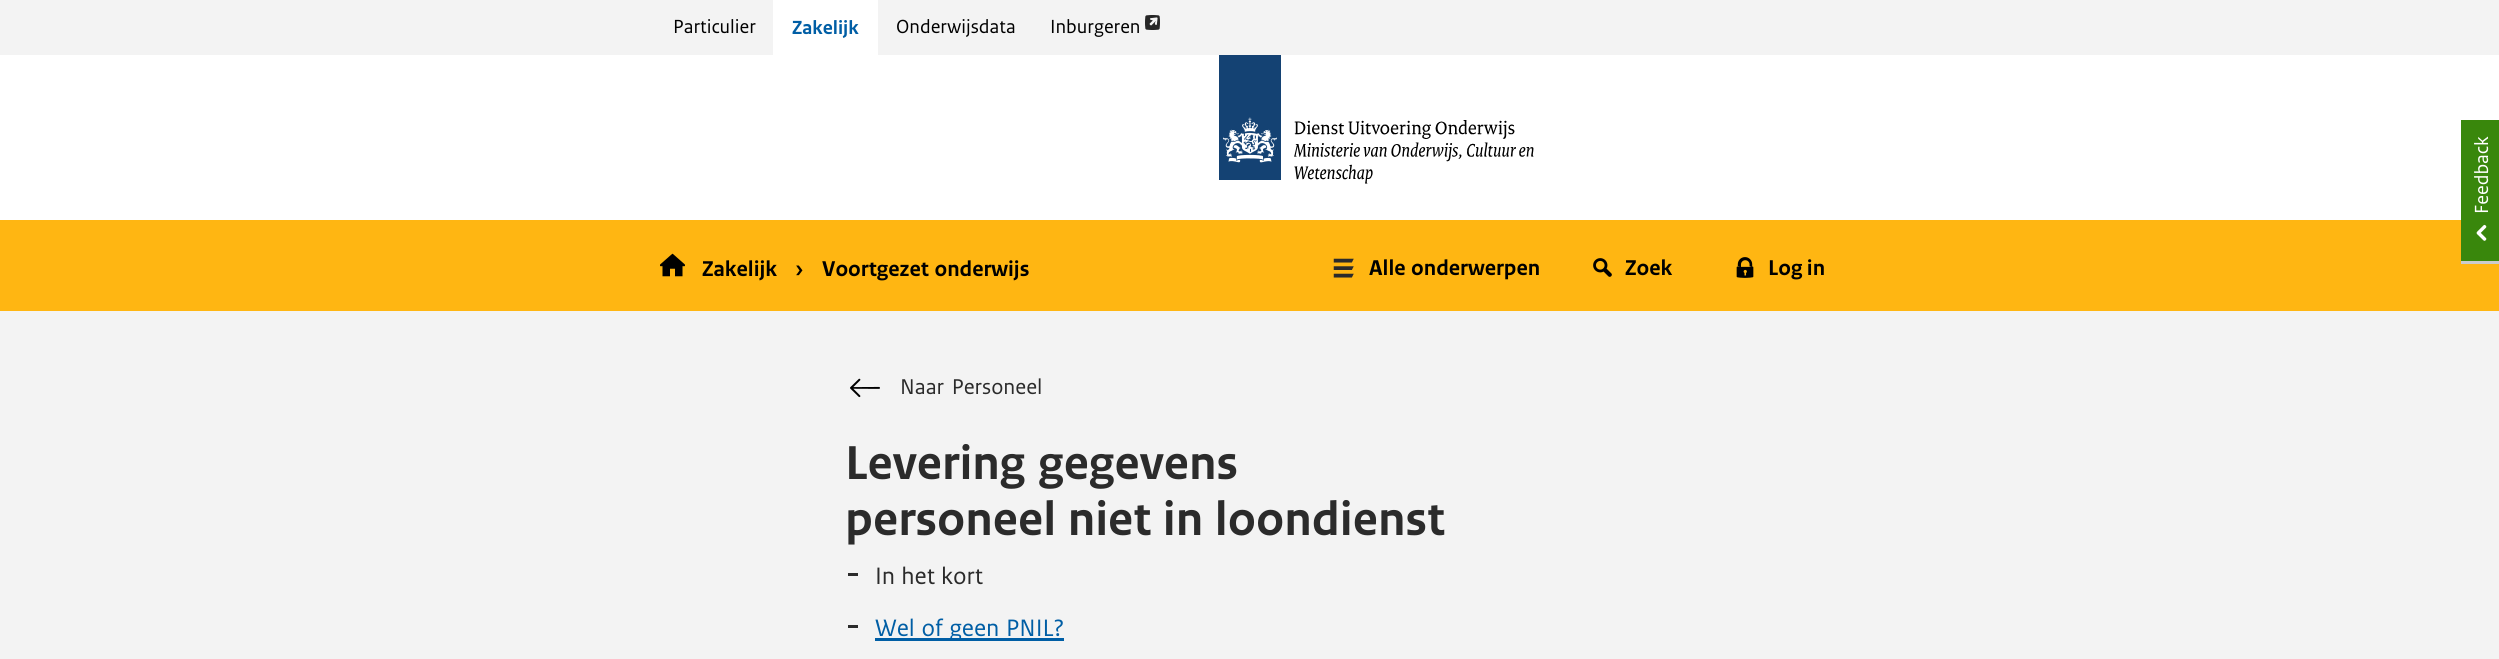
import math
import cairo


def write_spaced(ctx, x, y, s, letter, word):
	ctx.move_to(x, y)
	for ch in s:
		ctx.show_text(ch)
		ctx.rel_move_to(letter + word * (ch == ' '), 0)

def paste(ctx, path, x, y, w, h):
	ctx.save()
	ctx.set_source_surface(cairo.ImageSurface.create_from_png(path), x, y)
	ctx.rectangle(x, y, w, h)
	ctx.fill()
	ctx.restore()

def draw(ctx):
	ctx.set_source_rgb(0.953, 0.953, 0.953)
	ctx.paint()
	ctx.select_font_face('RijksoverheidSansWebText')
	ctx.set_font_size(20)
	ctx.set_source_rgb(0, 0, 0)
	ctx.move_to(673, 33)
	ctx.show_text('Particulier')
	ctx.set_source_rgb(1, 1, 1)
	ctx.rectangle(773, 0, 105, 55)
	ctx.fill()
	ctx.select_font_face('RijksoverheidSansWebText', cairo.FONT_SLANT_NORMAL, cairo.FONT_WEIGHT_BOLD)
	ctx.set_source_rgb(0, 0.369, 0.647)
	ctx.move_to(792, 34)
	ctx.show_text('Zakelijk')
	ctx.select_font_face('RijksoverheidSansWebText')
	ctx.set_source_rgb(0, 0, 0)
	ctx.move_to(896, 33)
	ctx.show_text('Onderwijsdata')
	ctx.move_to(1050, 33)
	ctx.show_text('Inburgeren')
	paste(ctx, 'media/1.png', 1145, 15, 15, 15)
	ctx.set_source_rgb(1, 1, 1)
	ctx.rectangle(0, 55, 2499, 165)
	ctx.fill()
	ctx.set_source_rgb(0.082, 0.259, 0.451)
	ctx.rectangle(1219, 55, 62, 125)
	ctx.fill()
	paste(ctx, 'media/2.png', 1223, 117, 54, 46)
	paste(ctx, 'media/3.png', 1294, 120, 240, 64)
	ctx.set_source_rgb(1, 0.714, 0.071)
	ctx.rectangle(0, 220, 2499, 91)
	ctx.fill()
	ctx.set_source_rgb(0.224, 0.529, 0.047)
	ctx.rectangle(2461, 120, 38, 141)
	ctx.fill()
	ctx.set_source_rgb(0.8, 0.8, 0.8)
	ctx.rectangle(2461, 261, 38, 3)
	ctx.fill()
	ctx.set_source_rgb(1, 1, 1)
	ctx.save()
	ctx.translate(2488, 214)
	ctx.rotate(-90 * math.pi / 180)
	ctx.move_to(0, 0)
	ctx.show_text('Feedback')
	ctx.restore()
	paste(ctx, 'media/4.png', 2476, 224, 11, 17)
	paste(ctx, 'media/5.png', 660, 253, 25, 24)
	ctx.select_font_face('RijksoverheidSansWebText', cairo.FONT_SLANT_NORMAL, cairo.FONT_WEIGHT_BOLD)
	ctx.set_font_size(22.5)
	ctx.set_source_rgb(0, 0, 0)
	ctx.move_to(702, 276)
	ctx.show_text('Zakelijk')
	ctx.move_to(795, 276)
	ctx.show_text('›')
	write_spaced(ctx, 822, 276, 'Voortgezet onderwijs', 0, 1)
	paste(ctx, 'media/6.png', 1333, 258, 21, 20)
	write_spaced(ctx, 1369, 275, 'Alle onderwerpen', 0, 1)
	paste(ctx, 'media/7.png', 1593, 258, 19, 19)
	ctx.move_to(1625, 275)
	ctx.show_text('Zoek')
	paste(ctx, 'media/8.png', 1736, 257, 18, 21)
	ctx.move_to(1768, 275)
	ctx.show_text('Log in')
	paste(ctx, 'media/9.png', 850, 378, 30, 20)
	ctx.select_font_face('RijksoverheidSansWebText')
	ctx.set_source_rgb(0.169, 0.169, 0.169)
	write_spaced(ctx, 900, 394, 'Naar Personeel', 0, 3)
	ctx.select_font_face('RijksoverheidSansWebText', cairo.FONT_SLANT_NORMAL, cairo.FONT_WEIGHT_BOLD)
	ctx.set_font_size(50)
	write_spaced(ctx, 845, 479, 'Levering gegevens', 0, 3)
	write_spaced(ctx, 845, 535, 'personeel niet in loondienst', 0, 1.5)
	ctx.rectangle(848, 573, 10, 3)
	ctx.fill()
	ctx.select_font_face('RijksoverheidSansWebText')
	ctx.set_font_size(25)
	write_spaced(ctx, 875, 584, 'In het kort', 0, 1)
	ctx.rectangle(848, 625, 10, 3)
	ctx.fill()
	ctx.set_source_rgb(0, 0.369, 0.647)
	ctx.rectangle(875, 638, 189, 3)
	ctx.fill()
	write_spaced(ctx, 875, 636, 'Wel of geen PNIL?', 0, 1.5)


surface = cairo.ImageSurface(cairo.FORMAT_RGB24, 2499, 659)
ctx = cairo.Context(surface)
options = cairo.FontOptions()
options.set_hint_metrics(cairo.HINT_METRICS_OFF)
options.set_hint_style(cairo.HINT_STYLE_NONE)
ctx.set_font_options(options)
ctx.set_miter_limit(4)
draw(ctx)
surface.write_to_png('image.png')
